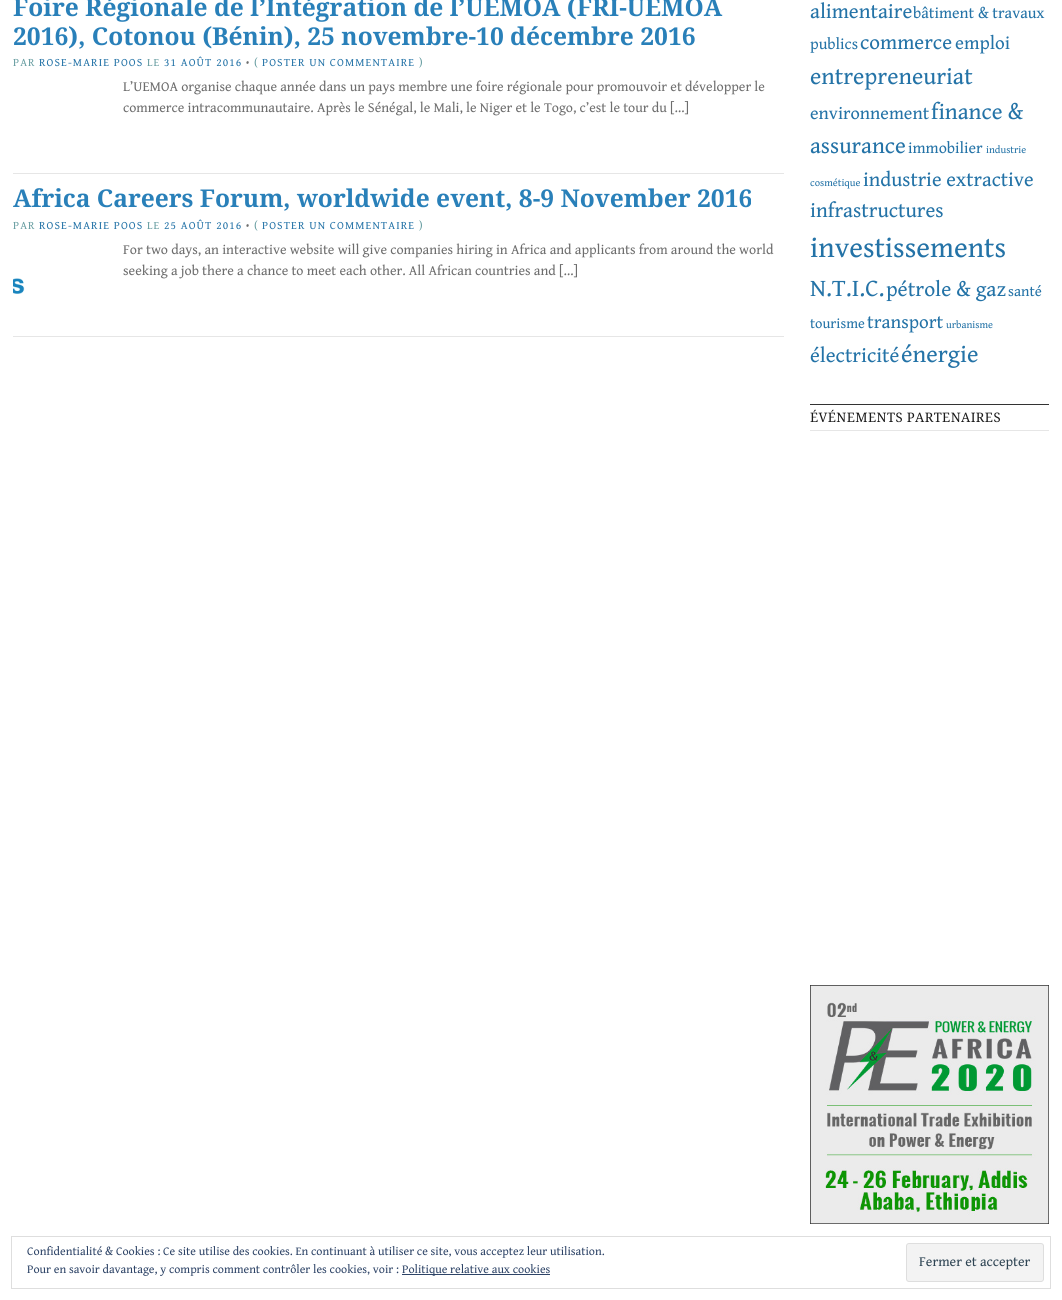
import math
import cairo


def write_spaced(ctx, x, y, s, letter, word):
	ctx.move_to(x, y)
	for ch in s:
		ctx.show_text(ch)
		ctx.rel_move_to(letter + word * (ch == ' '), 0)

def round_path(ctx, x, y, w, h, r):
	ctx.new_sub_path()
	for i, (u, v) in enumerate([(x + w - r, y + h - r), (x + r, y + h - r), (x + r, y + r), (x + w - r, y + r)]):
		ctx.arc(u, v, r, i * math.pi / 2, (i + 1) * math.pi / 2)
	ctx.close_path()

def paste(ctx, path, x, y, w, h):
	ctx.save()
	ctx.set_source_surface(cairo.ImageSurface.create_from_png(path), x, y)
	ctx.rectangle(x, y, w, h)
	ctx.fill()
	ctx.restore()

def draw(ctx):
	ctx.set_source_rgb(1, 1, 1)
	ctx.paint()
	ctx.set_source_rgb(0.902, 0.902, 0.902)
	ctx.rectangle(13, 173, 771, 1)
	ctx.fill()
	ctx.select_font_face('Noto Serif', cairo.FONT_SLANT_NORMAL, cairo.FONT_WEIGHT_BOLD)
	ctx.set_font_size(24.5)
	ctx.set_source_rgb(0.161, 0.502, 0.725)
	ctx.move_to(13, 16)
	ctx.show_text('Foire Régionale de l’Intégration de l’UEMOA (FRI-UEMOA')
	ctx.move_to(13, 45)
	ctx.show_text('2016), Cotonou (Bénin), 25 novembre-10 décembre 2016')
	ctx.select_font_face('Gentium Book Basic')
	ctx.set_font_size(11.25)
	ctx.set_source_rgb(0.404, 0.616, 0.631)
	write_spaced(ctx, 13, 66, 'PAR', 1.1, 0)
	ctx.set_source_rgb(0.141, 0.451, 0.655)
	write_spaced(ctx, 39, 66, 'ROSE-MARIE POOS', 1.1, 0)
	ctx.set_source_rgb(0.404, 0.616, 0.631)
	write_spaced(ctx, 147, 66, 'LE', 1.1, 0)
	ctx.set_source_rgb(0.141, 0.451, 0.655)
	write_spaced(ctx, 164, 66, '31 AOÛT 2016', 1.1, 0)
	ctx.set_source_rgb(0.427, 0.427, 0.427)
	write_spaced(ctx, 246, 66, '•', 1.1, 0)
	ctx.set_source_rgb(0.404, 0.616, 0.631)
	write_spaced(ctx, 254, 66, '(', 1.1, 0)
	ctx.set_source_rgb(0.141, 0.451, 0.655)
	write_spaced(ctx, 262, 66, 'POSTER UN COMMENTAIRE', 1.1, 0)
	ctx.set_source_rgb(0.404, 0.616, 0.631)
	write_spaced(ctx, 419, 66, ')', 1.1, 0)
	ctx.set_font_size(14)
	ctx.set_source_rgb(0.427, 0.427, 0.427)
	ctx.move_to(123, 91)
	ctx.show_text('L’UEMOA organise chaque année dans un pays membre une foire régionale pour promouvoir et développer le')
	ctx.move_to(123, 112)
	ctx.show_text('commerce intracommunautaire. Après le Sénégal, le Mali, le Niger et le Togo, c’est le tour du […]')
	ctx.set_source_rgb(0.902, 0.902, 0.902)
	ctx.rectangle(13, 336, 771, 1)
	ctx.fill()
	ctx.select_font_face('Noto Serif', cairo.FONT_SLANT_NORMAL, cairo.FONT_WEIGHT_BOLD)
	ctx.set_font_size(24.5)
	ctx.set_source_rgb(0.161, 0.502, 0.725)
	ctx.move_to(13, 207)
	ctx.show_text('Africa Careers Forum, worldwide event, 8-9 November 2016')
	ctx.select_font_face('Gentium Book Basic')
	ctx.set_font_size(11.25)
	ctx.set_source_rgb(0.404, 0.616, 0.631)
	write_spaced(ctx, 13, 229, 'PAR', 1.1, 0)
	ctx.set_source_rgb(0.141, 0.451, 0.655)
	write_spaced(ctx, 39, 229, 'ROSE-MARIE POOS', 1.1, 0)
	ctx.set_source_rgb(0.404, 0.616, 0.631)
	write_spaced(ctx, 147, 229, 'LE', 1.1, 0)
	ctx.set_source_rgb(0.141, 0.451, 0.655)
	write_spaced(ctx, 164, 229, '25 AOÛT 2016', 1.1, 0)
	ctx.set_source_rgb(0.427, 0.427, 0.427)
	write_spaced(ctx, 246, 229, '•', 1.1, 0)
	ctx.set_source_rgb(0.404, 0.616, 0.631)
	write_spaced(ctx, 254, 229, '(', 1.1, 0)
	ctx.set_source_rgb(0.141, 0.451, 0.655)
	write_spaced(ctx, 262, 229, 'POSTER UN COMMENTAIRE', 1.1, 0)
	ctx.set_source_rgb(0.404, 0.616, 0.631)
	write_spaced(ctx, 419, 229, ')', 1.1, 0)
	ctx.set_font_size(14)
	ctx.set_source_rgb(0.427, 0.427, 0.427)
	ctx.move_to(123, 254)
	ctx.show_text('For two days, an interactive website will give companies hiring in Africa and applicants from around the world')
	ctx.move_to(123, 275)
	ctx.show_text('seeking a job there a chance to meet each other. All African countries and […]')
	paste(ctx, 'media/1.png', 13, 278, 12, 16)
	ctx.set_font_size(21)
	ctx.set_source_rgb(0.141, 0.451, 0.655)
	ctx.move_to(810, 18)
	ctx.show_text('alimentaire')
	ctx.set_font_size(16)
	ctx.move_to(913, 18)
	ctx.show_text('bâtiment & travaux')
	ctx.move_to(810, 49)
	ctx.show_text('publics')
	ctx.set_font_size(21)
	ctx.move_to(860, 49)
	ctx.show_text('commerce')
	ctx.set_font_size(19)
	ctx.move_to(955, 49)
	ctx.show_text('emploi')
	ctx.set_font_size(24)
	ctx.move_to(810, 84)
	ctx.show_text('entrepreneuriat')
	ctx.set_font_size(18.25)
	ctx.move_to(810, 119)
	ctx.show_text('environnement')
	ctx.set_font_size(23)
	ctx.move_to(931, 119)
	ctx.show_text('finance &')
	ctx.move_to(810, 153)
	ctx.show_text('assurance')
	ctx.set_font_size(16)
	ctx.move_to(908, 153)
	ctx.show_text('immobilier')
	ctx.set_font_size(10.5)
	ctx.move_to(986, 153)
	ctx.show_text('industrie')
	ctx.move_to(810, 186)
	ctx.show_text('cosmétique')
	ctx.set_font_size(20.5)
	ctx.move_to(863, 186)
	ctx.show_text('industrie extractive')
	ctx.set_font_size(21)
	ctx.move_to(810, 217)
	ctx.show_text('infrastructures')
	ctx.set_font_size(29.25)
	ctx.move_to(810, 257)
	ctx.show_text('investissements')
	ctx.set_font_size(24.5)
	ctx.move_to(810, 296)
	ctx.show_text('N.T.I.C.')
	ctx.set_font_size(21.5)
	ctx.move_to(886, 296)
	ctx.show_text('pétrole & gaz')
	ctx.set_font_size(15)
	ctx.move_to(1008, 296)
	ctx.show_text('santé')
	ctx.set_font_size(14.5)
	ctx.move_to(810, 328)
	ctx.show_text('tourisme')
	ctx.set_font_size(19)
	ctx.move_to(867, 328)
	ctx.show_text('transport')
	ctx.set_font_size(10.5)
	ctx.move_to(946, 328)
	ctx.show_text('urbanisme')
	ctx.set_font_size(21)
	ctx.move_to(810, 362)
	ctx.show_text('électricité')
	ctx.set_font_size(24.5)
	ctx.move_to(901, 362)
	ctx.show_text('énergie')
	ctx.set_source_rgb(0.2, 0.2, 0.2)
	ctx.rectangle(810, 404, 239, 1)
	ctx.fill()
	ctx.set_source_rgb(0.902, 0.902, 0.902)
	ctx.rectangle(810, 430, 239, 1)
	ctx.fill()
	ctx.select_font_face('Noto Serif')
	ctx.set_font_size(13.1)
	ctx.set_source_rgb(0.102, 0.102, 0.102)
	write_spaced(ctx, 810, 422, 'ÉVÉNEMENTS PARTENAIRES', 0.4, 0)
	paste(ctx, 'media/2.png', 810, 985, 239, 239)
	ctx.rectangle(11.5, 1236.5, 1039, 52)
	ctx.set_source_rgb(0.871, 0.871, 0.871)
	ctx.set_line_width(1)
	ctx.stroke()
	ctx.select_font_face('Gentium Book Basic')
	ctx.set_font_size(12)
	ctx.set_source_rgb(0.18, 0.267, 0.404)
	ctx.move_to(27, 1255)
	ctx.show_text('Confidentialité & Cookies : Ce site utilise des cookies. En continuant à utiliser ce site, vous acceptez leur utilisation.')
	ctx.move_to(27, 1273)
	ctx.show_text('Pour en savoir davantage, y compris comment contrôler les cookies, voir :')
	ctx.rectangle(402, 1274, 148, 1)
	ctx.fill()
	ctx.move_to(402, 1273)
	ctx.show_text('Politique relative aux cookies')
	ctx.set_source_rgb(0.953, 0.953, 0.953)
	round_path(ctx, 906.5, 1243.5, 137, 38, 2.5)
	ctx.fill_preserve()
	ctx.set_source_rgb(0.871, 0.871, 0.871)
	ctx.stroke()
	ctx.set_font_size(14)
	ctx.set_source_rgb(0.18, 0.267, 0.325)
	ctx.move_to(919, 1266)
	ctx.show_text('Fermer et accepter')


surface = cairo.ImageSurface(cairo.FORMAT_RGB24, 1062, 1300)
ctx = cairo.Context(surface)
options = cairo.FontOptions()
options.set_hint_metrics(cairo.HINT_METRICS_OFF)
options.set_hint_style(cairo.HINT_STYLE_NONE)
ctx.set_font_options(options)
ctx.set_miter_limit(4)
draw(ctx)
surface.write_to_png('image.png')
